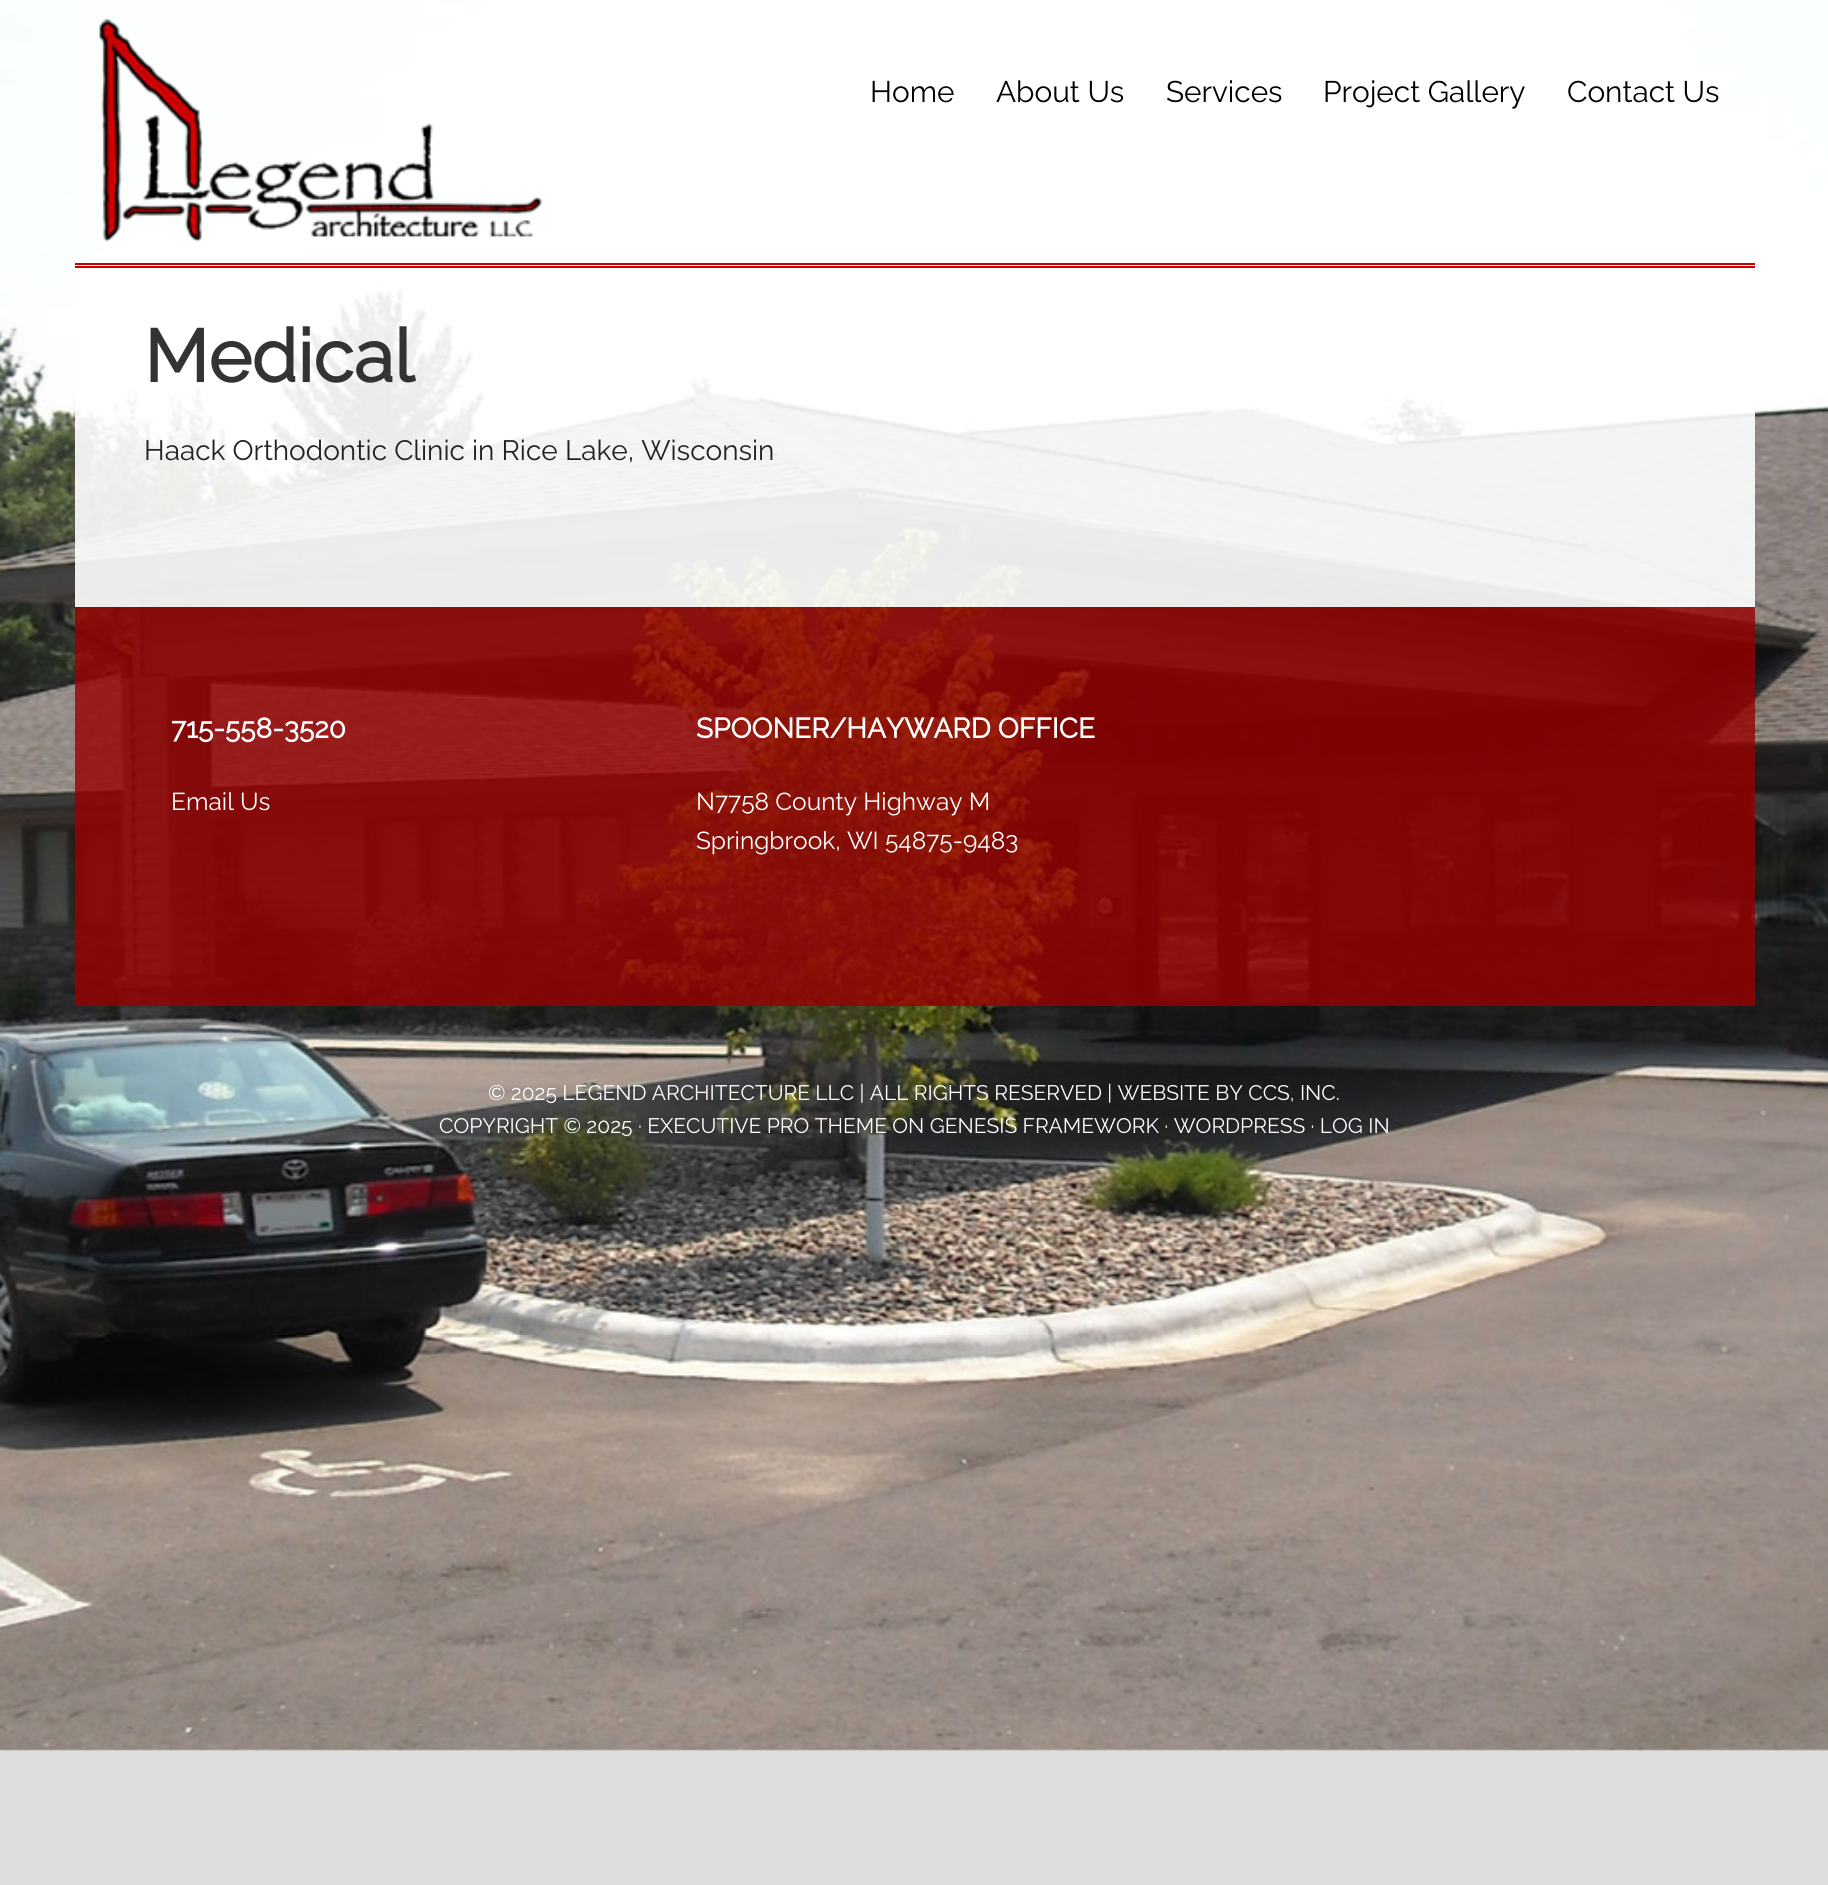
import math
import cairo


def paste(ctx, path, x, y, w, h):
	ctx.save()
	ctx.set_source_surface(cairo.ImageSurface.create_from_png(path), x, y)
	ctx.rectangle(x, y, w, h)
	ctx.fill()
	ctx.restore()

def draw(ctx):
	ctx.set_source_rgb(0.867, 0.867, 0.867)
	ctx.paint()
	paste(ctx, 'media/1.png', 0, 0, 1828, 1751)
	ctx.set_source_rgba(1, 1, 1, 0.6)
	ctx.rectangle(75, 0, 391, 238)
	ctx.fill()
	paste(ctx, 'media/2.png', 99, 18, 444, 224)
	ctx.select_font_face('Raleway Thin')
	ctx.set_font_size(29.75)
	ctx.set_source_rgb(0, 0, 0)
	for x, y, s in [
		(870, 102, 'Home'),
		(996, 102, 'About Us'),
		(1166, 102, 'Services'),
		(1323, 102, 'Project Gallery'),
		(1567, 102, 'Contact Us'),
	]:
		ctx.move_to(x, y)
		ctx.show_text(s)
	ctx.set_source_rgba(1, 1, 1, 0.9)
	ctx.rectangle(75, 265, 1680, 342)
	ctx.fill()
	ctx.set_source_rgb(0.8, 0, 0)
	ctx.rectangle(75, 263, 1680, 2)
	ctx.rectangle(75, 266, 1680, 2)
	ctx.fill()
	ctx.select_font_face('Raleway', cairo.FONT_SLANT_NORMAL, cairo.FONT_WEIGHT_BOLD)
	ctx.set_font_size(73.5)
	ctx.set_source_rgb(0.2, 0.2, 0.2)
	ctx.move_to(144, 382)
	ctx.show_text('Medical')
	ctx.select_font_face('Raleway Thin')
	ctx.set_font_size(28)
	ctx.set_source_rgb(0.133, 0.133, 0.133)
	ctx.move_to(144, 460)
	ctx.show_text('Haack Orthodontic Clinic in Rice Lake, Wisconsin')
	ctx.set_source_rgba(0.6, 0, 0, 0.8)
	ctx.rectangle(75, 607, 1680, 399)
	ctx.fill()
	ctx.select_font_face('Raleway', cairo.FONT_SLANT_NORMAL, cairo.FONT_WEIGHT_BOLD)
	ctx.set_source_rgb(1, 1, 1)
	ctx.move_to(171, 738)
	ctx.show_text('715-558-3520')
	ctx.select_font_face('Raleway Thin')
	ctx.set_font_size(24.5)
	ctx.move_to(171, 810)
	ctx.show_text('Email Us')
	ctx.select_font_face('Raleway', cairo.FONT_SLANT_NORMAL, cairo.FONT_WEIGHT_BOLD)
	ctx.set_font_size(28)
	ctx.move_to(696, 738)
	ctx.show_text('SPOONER/HAYWARD OFFICE')
	ctx.select_font_face('Raleway Thin')
	ctx.set_font_size(24.5)
	ctx.move_to(696, 810)
	ctx.show_text('N7758 County Highway M')
	ctx.move_to(696, 849)
	ctx.show_text('Springbrook, WI 54875-9483')
	ctx.set_font_size(21)
	ctx.move_to(488, 1100)
	ctx.show_text('© 2025 LEGEND ARCHITECTURE LLC | ALL RIGHTS RESERVED | WEBSITE BY CCS, INC.')
	ctx.move_to(439, 1133)
	ctx.show_text('COPYRIGHT © 2025 · EXECUTIVE PRO THEME ON GENESIS FRAMEWORK · WORDPRESS · LOG IN')


surface = cairo.ImageSurface(cairo.FORMAT_RGB24, 1828, 1885)
ctx = cairo.Context(surface)
options = cairo.FontOptions()
options.set_hint_metrics(cairo.HINT_METRICS_OFF)
options.set_hint_style(cairo.HINT_STYLE_NONE)
ctx.set_font_options(options)
ctx.set_miter_limit(4)
draw(ctx)
surface.write_to_png('image.png')
